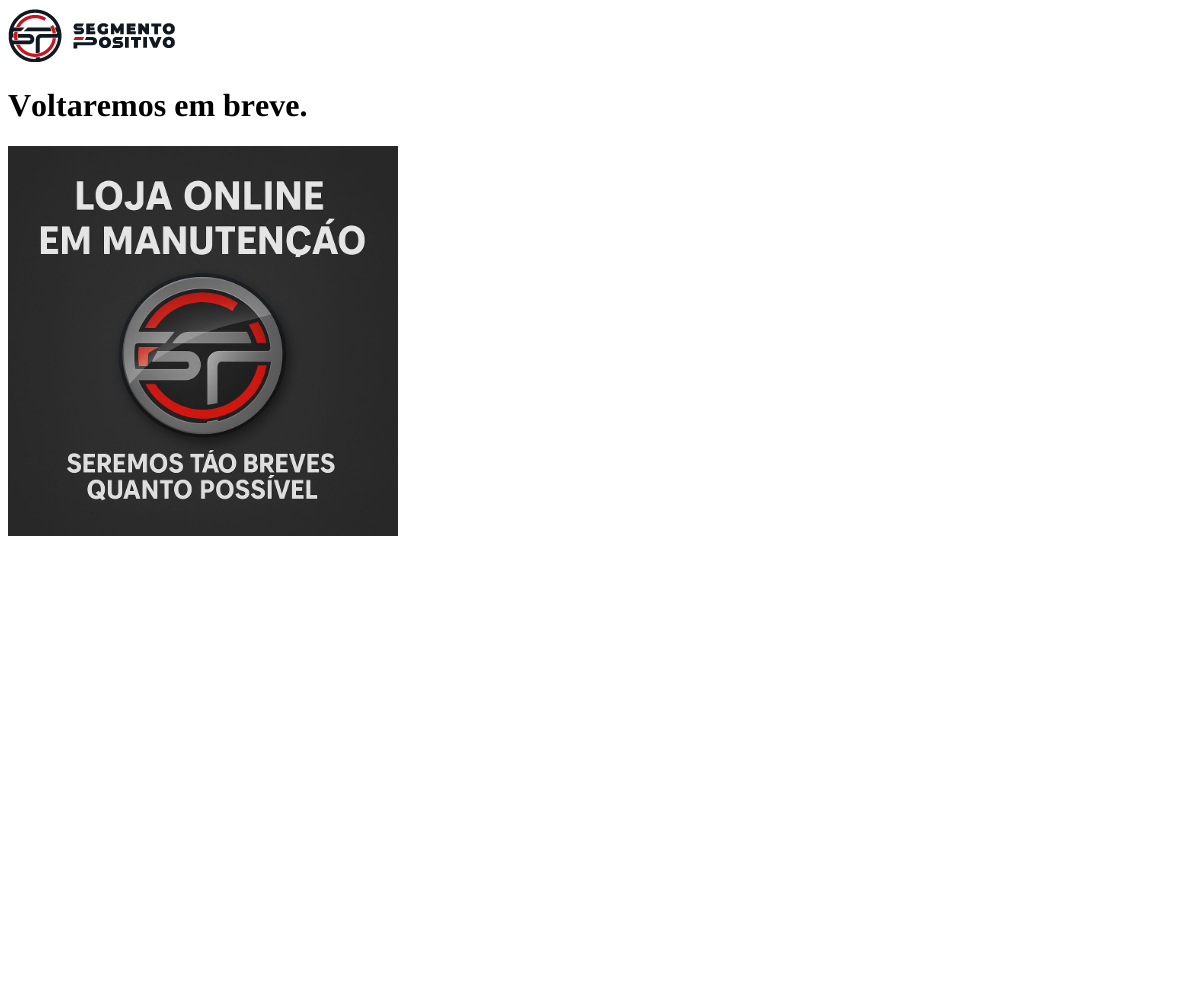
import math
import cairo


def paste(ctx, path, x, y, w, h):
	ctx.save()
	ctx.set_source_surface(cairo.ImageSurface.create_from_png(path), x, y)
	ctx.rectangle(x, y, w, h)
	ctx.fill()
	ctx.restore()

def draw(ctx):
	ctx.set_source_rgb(1, 1, 1)
	ctx.paint()
	paste(ctx, 'media/1.png', 8, 9, 167, 53)
	ctx.select_font_face('Liberation Serif', cairo.FONT_SLANT_NORMAL, cairo.FONT_WEIGHT_BOLD)
	ctx.set_font_size(32)
	ctx.set_source_rgb(0, 0, 0)
	ctx.move_to(8, 116)
	ctx.show_text('Voltaremos em breve.')
	paste(ctx, 'media/2.png', 8, 146, 390, 390)


surface = cairo.ImageSurface(cairo.FORMAT_RGB24, 1190, 1006)
ctx = cairo.Context(surface)
options = cairo.FontOptions()
options.set_hint_metrics(cairo.HINT_METRICS_OFF)
options.set_hint_style(cairo.HINT_STYLE_NONE)
ctx.set_font_options(options)
ctx.set_miter_limit(4)
draw(ctx)
surface.write_to_png('image.png')
